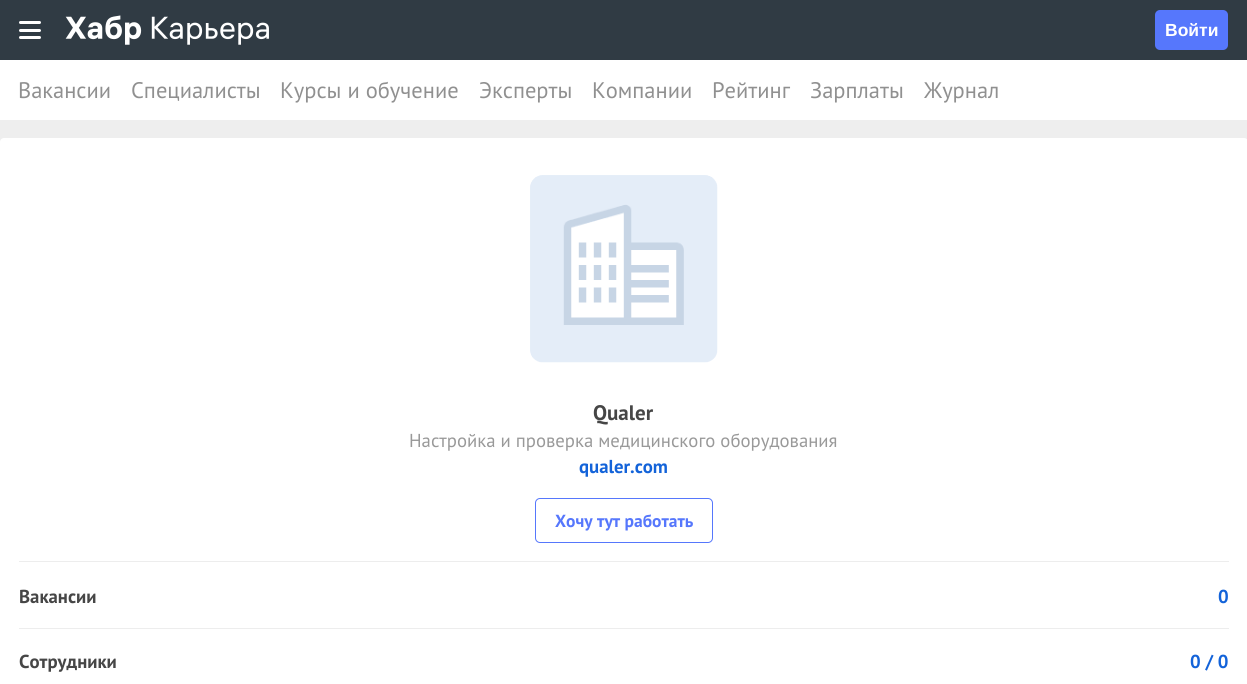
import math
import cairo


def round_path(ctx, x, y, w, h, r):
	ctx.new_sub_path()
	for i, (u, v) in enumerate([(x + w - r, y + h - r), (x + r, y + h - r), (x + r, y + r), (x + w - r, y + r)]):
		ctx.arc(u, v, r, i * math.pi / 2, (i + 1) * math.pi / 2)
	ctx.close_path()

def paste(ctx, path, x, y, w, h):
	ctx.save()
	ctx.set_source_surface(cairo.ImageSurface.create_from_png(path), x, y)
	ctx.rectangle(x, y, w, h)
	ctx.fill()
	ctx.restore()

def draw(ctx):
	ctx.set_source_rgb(0.933, 0.933, 0.933)
	ctx.paint()
	ctx.set_source_rgb(0.188, 0.231, 0.267)
	ctx.rectangle(0, 0, 1247, 60)
	ctx.fill()
	ctx.set_source_rgb(1, 1, 1)
	round_path(ctx, 19, 29, 22, 3, 1.5)
	ctx.fill()
	round_path(ctx, 19, 21, 22, 3, 1.5)
	ctx.fill()
	round_path(ctx, 19, 36, 22, 3, 1.5)
	ctx.fill()
	paste(ctx, 'media/1.png', 65, 15, 204, 30)
	ctx.set_source_rgb(0.337, 0.467, 0.988)
	round_path(ctx, 1155, 10, 73, 40, 5)
	ctx.fill()
	ctx.select_font_face('Liberation Sans', cairo.FONT_SLANT_NORMAL, cairo.FONT_WEIGHT_BOLD)
	ctx.set_font_size(17.5)
	ctx.set_source_rgb(1, 1, 1)
	ctx.move_to(1165, 36)
	ctx.show_text('Войти')
	ctx.rectangle(0, 60, 1247, 60)
	ctx.fill()
	ctx.select_font_face('PT Sans')
	ctx.set_font_size(22.5)
	ctx.set_source_rgb(0.565, 0.565, 0.565)
	for x, y, s in [
		(18, 98, 'Вакансии'),
		(131, 98, 'Специалисты'),
		(280, 98, 'Курсы и обучение'),
		(479, 98, 'Эксперты'),
		(592, 98, 'Компании'),
		(712, 98, 'Рейтинг'),
		(810, 98, 'Зарплаты'),
		(924, 98, 'Журнал'),
	]:
		ctx.move_to(x, y)
		ctx.show_text(s)
	ctx.set_source_rgb(1, 1, 1)
	round_path(ctx, 0, 138, 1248, 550, 4)
	ctx.fill()
	paste(ctx, 'media/2.png', 530, 175, 188, 188)
	ctx.select_font_face('PT Sans', cairo.FONT_SLANT_NORMAL, cairo.FONT_WEIGHT_BOLD)
	ctx.set_font_size(21)
	ctx.set_source_rgb(0.275, 0.275, 0.275)
	ctx.move_to(593, 420)
	ctx.show_text('Qualer')
	ctx.select_font_face('PT Sans')
	ctx.set_font_size(18.75)
	ctx.set_source_rgb(0.6, 0.6, 0.6)
	ctx.move_to(409, 447)
	ctx.show_text('Настройка и проверка медицинского оборудования')
	ctx.select_font_face('PT Sans', cairo.FONT_SLANT_NORMAL, cairo.FONT_WEIGHT_BOLD)
	ctx.set_source_rgb(0.078, 0.388, 0.851)
	ctx.move_to(579, 473)
	ctx.show_text('qualer.com')
	round_path(ctx, 535.5, 498.5, 177, 44, 4.5)
	ctx.set_source_rgb(0.337, 0.467, 0.988)
	ctx.set_line_width(1)
	ctx.stroke()
	ctx.set_font_size(17.5)
	ctx.move_to(555, 527)
	ctx.show_text('Хочу тут работать')
	ctx.set_source_rgb(0.929, 0.929, 0.929)
	ctx.rectangle(19, 561, 1210, 1)
	ctx.fill()
	ctx.set_font_size(18.75)
	ctx.set_source_rgb(0.275, 0.275, 0.275)
	ctx.move_to(19, 603)
	ctx.show_text('Вакансии')
	ctx.set_source_rgb(0.078, 0.388, 0.851)
	ctx.move_to(1218, 603)
	ctx.show_text('0')
	ctx.set_source_rgb(0.929, 0.929, 0.929)
	ctx.rectangle(19, 628, 1210, 1)
	ctx.fill()
	ctx.set_source_rgb(0.275, 0.275, 0.275)
	ctx.move_to(19, 668)
	ctx.show_text('Сотрудники')
	ctx.set_source_rgb(0.078, 0.388, 0.851)
	ctx.move_to(1190, 668)
	ctx.show_text('0 / 0')


surface = cairo.ImageSurface(cairo.FORMAT_RGB24, 1247, 684)
ctx = cairo.Context(surface)
options = cairo.FontOptions()
options.set_hint_metrics(cairo.HINT_METRICS_OFF)
options.set_hint_style(cairo.HINT_STYLE_NONE)
ctx.set_font_options(options)
ctx.set_miter_limit(4)
draw(ctx)
surface.write_to_png('image.png')
